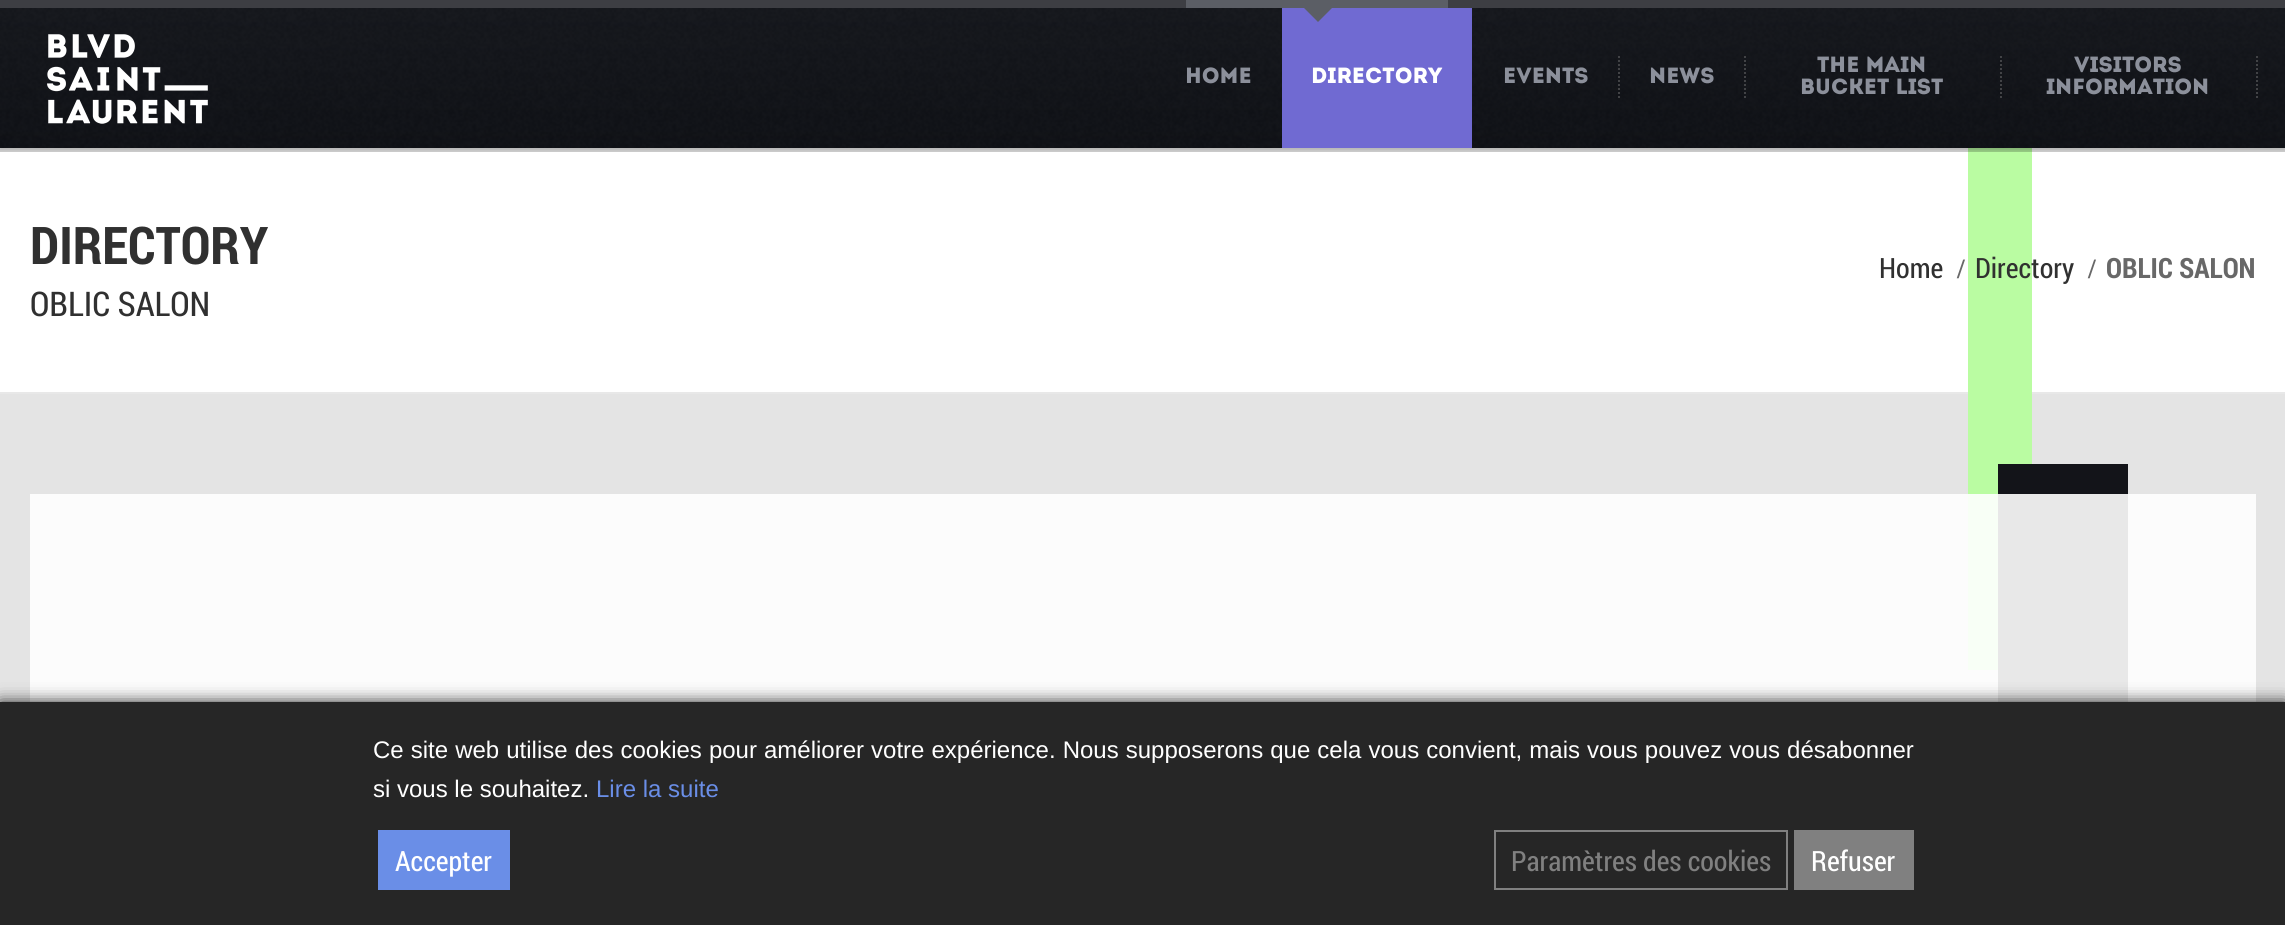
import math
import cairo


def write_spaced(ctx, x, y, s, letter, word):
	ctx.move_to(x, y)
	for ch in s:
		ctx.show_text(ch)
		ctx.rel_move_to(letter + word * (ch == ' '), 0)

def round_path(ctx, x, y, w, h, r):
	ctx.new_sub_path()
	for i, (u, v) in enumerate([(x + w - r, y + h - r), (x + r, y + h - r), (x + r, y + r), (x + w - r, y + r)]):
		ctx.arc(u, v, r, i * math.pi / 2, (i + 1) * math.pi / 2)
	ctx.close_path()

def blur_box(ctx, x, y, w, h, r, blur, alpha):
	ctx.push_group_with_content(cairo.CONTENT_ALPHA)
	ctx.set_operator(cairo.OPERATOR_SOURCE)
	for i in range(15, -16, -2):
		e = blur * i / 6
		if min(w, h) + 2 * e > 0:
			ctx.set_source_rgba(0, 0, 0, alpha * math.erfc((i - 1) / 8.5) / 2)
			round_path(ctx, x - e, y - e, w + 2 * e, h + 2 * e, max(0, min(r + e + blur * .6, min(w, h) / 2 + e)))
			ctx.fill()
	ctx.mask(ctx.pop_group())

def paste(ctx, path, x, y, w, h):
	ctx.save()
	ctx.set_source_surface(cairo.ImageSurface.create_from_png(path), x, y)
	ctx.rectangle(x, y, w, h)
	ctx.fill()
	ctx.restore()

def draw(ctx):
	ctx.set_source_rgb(0.894, 0.894, 0.894)
	ctx.paint()
	ctx.set_source_rgb(1, 1, 1)
	ctx.rectangle(0, 148, 2285, 244)
	ctx.fill()
	ctx.set_source_rgb(0.91, 0.91, 0.91)
	ctx.rectangle(0, 392, 2285, 2)
	ctx.fill()
	paste(ctx, 'media/3.png', 1968, 148, 64, 522)
	ctx.set_source_rgb(0, 0, 0)
	blur_box(ctx, 0, 10, 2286, 140, 0, 1, 0.1)
	ctx.set_source_rgb(0.239, 0.243, 0.263)
	ctx.rectangle(0, 0, 2285, 8)
	ctx.fill()
	ctx.set_source_rgb(0.357, 0.369, 0.396)
	ctx.rectangle(1186, 0, 262, 8)
	ctx.fill()
	paste(ctx, 'media/1.png', 0, 8, 2285, 140)
	ctx.set_source_rgb(0.439, 0.416, 0.824)
	ctx.rectangle(1282, 8, 190, 140)
	ctx.fill()
	ctx.set_source_rgb(0.357, 0.369, 0.396)
	ctx.new_path()
	ctx.move_to(1298, 2)
	ctx.line_to(1338, 2)
	ctx.line_to(1318, 22)
	ctx.close_path()
	ctx.fill()
	paste(ctx, 'media/2.png', 47, 34, 161, 90)
	ctx.select_font_face('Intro')
	ctx.set_font_size(22)
	ctx.set_source_rgb(0.549, 0.565, 0.608)
	ctx.move_to(1185, 83)
	ctx.show_text('HOME')
	ctx.set_source_rgb(1, 1, 1)
	ctx.move_to(1311, 83)
	ctx.show_text('DIRECTORY')
	ctx.set_source_rgb(0.549, 0.565, 0.608)
	ctx.move_to(1503, 83)
	ctx.show_text('EVENTS')
	ctx.new_path()
	ctx.move_to(1619, 56)
	ctx.line_to(1619, 100)
	ctx.set_source_rgb(0.259, 0.263, 0.275)
	ctx.set_dash([2, 2])
	ctx.stroke()
	ctx.set_source_rgb(0.549, 0.565, 0.608)
	ctx.move_to(1649, 83)
	ctx.show_text('NEWS')
	ctx.new_path()
	ctx.move_to(1745, 56)
	ctx.line_to(1745, 100)
	ctx.set_source_rgb(0.259, 0.263, 0.275)
	ctx.stroke()
	ctx.set_source_rgb(0.549, 0.565, 0.608)
	ctx.move_to(1817, 72)
	ctx.show_text('THE MAIN')
	ctx.move_to(1800, 94)
	ctx.show_text('BUCKET LIST')
	ctx.new_path()
	ctx.move_to(2001, 56)
	ctx.line_to(2001, 100)
	ctx.set_source_rgb(0.259, 0.263, 0.275)
	ctx.stroke()
	ctx.set_source_rgb(0.549, 0.565, 0.608)
	ctx.move_to(2074, 72)
	ctx.show_text('VISITORS')
	ctx.new_path()
	ctx.move_to(2257, 56)
	ctx.line_to(2257, 100)
	ctx.set_source_rgb(0.259, 0.263, 0.275)
	ctx.stroke()
	ctx.set_source_rgb(0.549, 0.565, 0.608)
	ctx.move_to(2046, 94)
	ctx.show_text('INFORMATION')
	ctx.set_source_rgba(0, 0, 0, 0.2)
	ctx.rectangle(0, 148, 2285, 4)
	ctx.fill()
	ctx.select_font_face('Roboto Condensed', cairo.FONT_SLANT_NORMAL, cairo.FONT_WEIGHT_BOLD)
	ctx.set_font_size(52)
	ctx.set_source_rgb(0.188, 0.188, 0.188)
	ctx.move_to(30, 264)
	ctx.show_text('DIRECTORY')
	ctx.select_font_face('Roboto Condensed')
	ctx.set_font_size(34)
	ctx.move_to(30, 316)
	ctx.show_text('OBLIC SALON')
	ctx.set_font_size(28)
	ctx.move_to(1879, 278)
	ctx.show_text('Home')
	ctx.select_font_face('Liberation Serif', cairo.FONT_SLANT_NORMAL, cairo.FONT_WEIGHT_BOLD)
	ctx.set_source_rgb(0.408, 0.408, 0.408)
	ctx.move_to(1957, 278)
	ctx.show_text('/')
	ctx.select_font_face('Roboto Condensed')
	ctx.set_source_rgb(0.188, 0.188, 0.188)
	ctx.move_to(1975, 278)
	ctx.show_text('Directory')
	ctx.select_font_face('Liberation Serif', cairo.FONT_SLANT_NORMAL, cairo.FONT_WEIGHT_BOLD)
	ctx.set_source_rgb(0.408, 0.408, 0.408)
	ctx.move_to(2088, 278)
	ctx.show_text('/')
	ctx.select_font_face('Roboto Condensed', cairo.FONT_SLANT_NORMAL, cairo.FONT_WEIGHT_BOLD)
	ctx.move_to(2106, 278)
	ctx.show_text('OBLIC SALON')
	ctx.set_source_rgb(0.075, 0.082, 0.098)
	ctx.rectangle(1998, 464, 130, 238)
	ctx.fill()
	ctx.set_source_rgba(1, 1, 1, 0.9)
	ctx.rectangle(30, 494, 2226, 208)
	ctx.fill()
	ctx.set_source_rgb(0.149, 0.149, 0.149)
	blur_box(ctx, 0, 702, 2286, 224, 0, 8, 1)
	ctx.set_source_rgb(0.149, 0.149, 0.149)
	ctx.rectangle(0, 702, 2285, 223)
	ctx.fill()
	ctx.select_font_face('Liberation Sans')
	ctx.set_font_size(24)
	ctx.set_source_rgb(1, 1, 1)
	write_spaced(ctx, 373, 758, 'Ce site web utilise des cookies pour améliorer votre expérience. Nous supposerons que cela vous convient, mais vous pouvez vous désabonner', 0, 0.4)
	ctx.move_to(373, 797)
	ctx.show_text('si vous le souhaitez.')
	ctx.set_source_rgb(0.416, 0.557, 0.906)
	ctx.move_to(596, 797)
	ctx.show_text('Lire la suite')
	ctx.rectangle(378, 830, 132, 60)
	ctx.fill()
	ctx.select_font_face('Roboto Condensed')
	ctx.set_font_size(28)
	ctx.set_source_rgb(1, 1, 1)
	ctx.move_to(395, 871)
	ctx.show_text('Accepter')
	ctx.rectangle(1495, 831, 292, 58)
	ctx.set_source_rgb(0.502, 0.502, 0.502)
	ctx.set_dash([])
	ctx.stroke()
	ctx.move_to(1511, 871)
	ctx.show_text('Paramètres des cookies')
	ctx.rectangle(1794, 830, 120, 60)
	ctx.fill()
	ctx.set_source_rgb(1, 1, 1)
	ctx.move_to(1811, 871)
	ctx.show_text('Refuser')


surface = cairo.ImageSurface(cairo.FORMAT_RGB24, 2285, 925)
ctx = cairo.Context(surface)
options = cairo.FontOptions()
options.set_hint_metrics(cairo.HINT_METRICS_OFF)
options.set_hint_style(cairo.HINT_STYLE_NONE)
ctx.set_font_options(options)
ctx.set_miter_limit(4)
draw(ctx)
surface.write_to_png('image.png')
